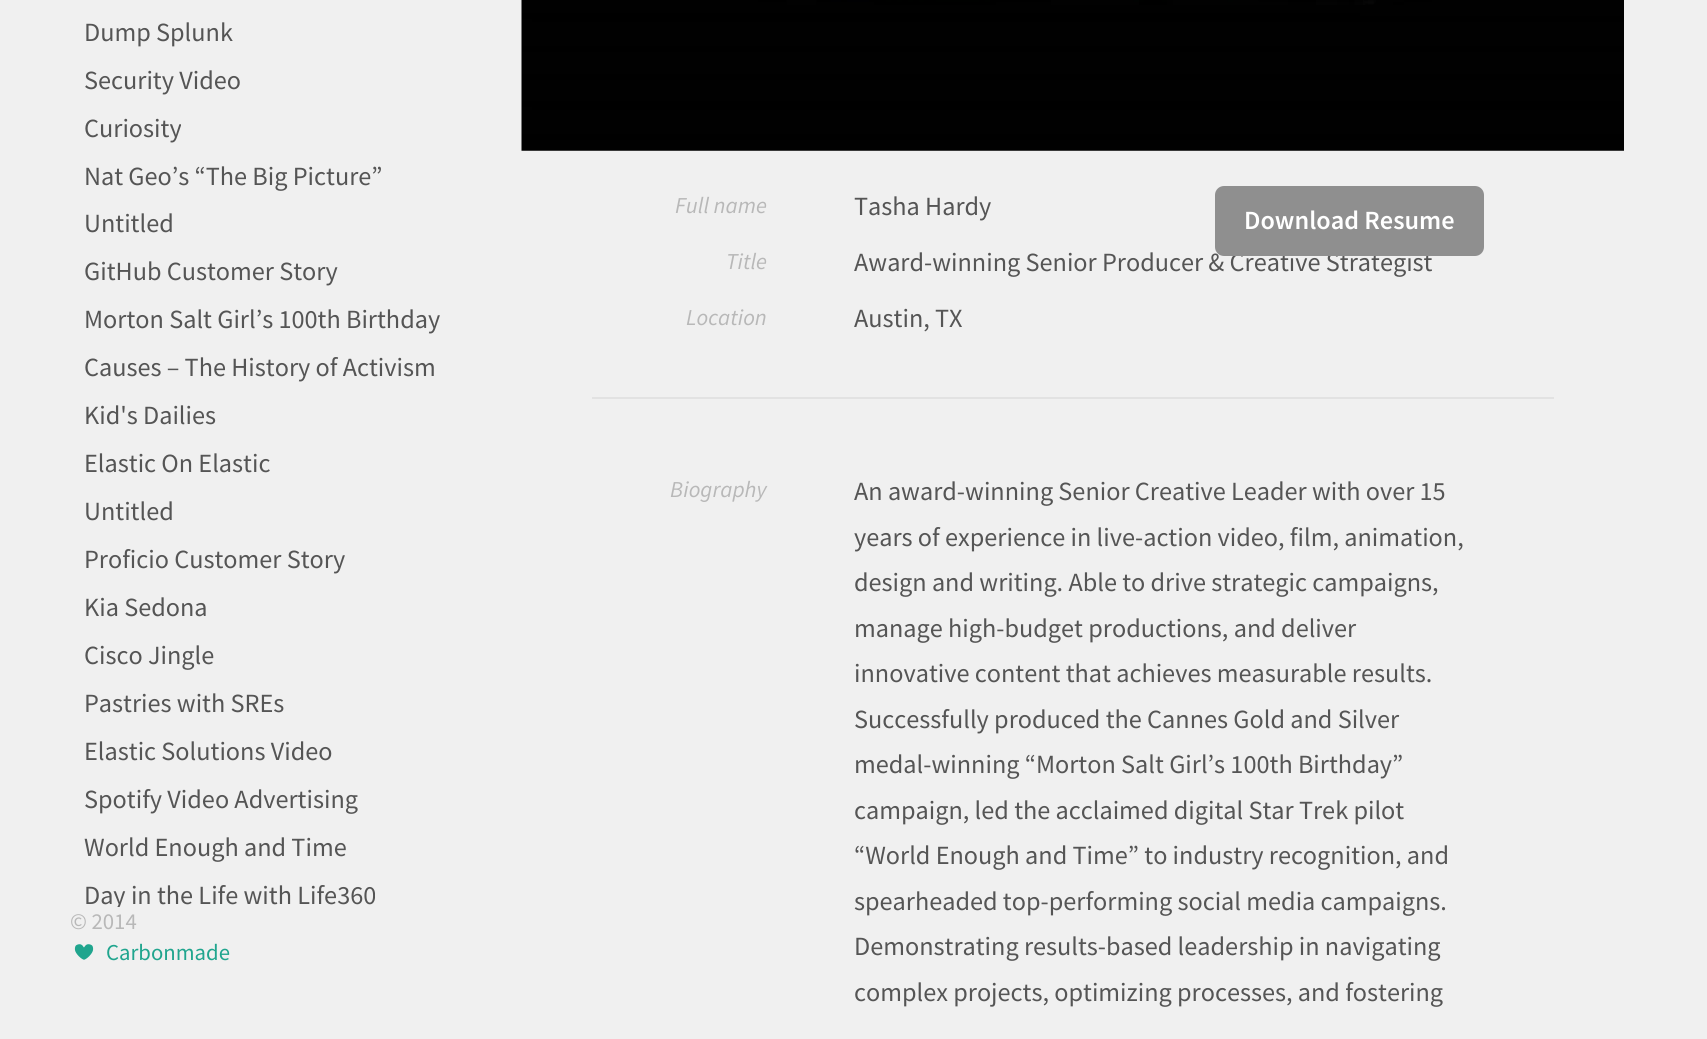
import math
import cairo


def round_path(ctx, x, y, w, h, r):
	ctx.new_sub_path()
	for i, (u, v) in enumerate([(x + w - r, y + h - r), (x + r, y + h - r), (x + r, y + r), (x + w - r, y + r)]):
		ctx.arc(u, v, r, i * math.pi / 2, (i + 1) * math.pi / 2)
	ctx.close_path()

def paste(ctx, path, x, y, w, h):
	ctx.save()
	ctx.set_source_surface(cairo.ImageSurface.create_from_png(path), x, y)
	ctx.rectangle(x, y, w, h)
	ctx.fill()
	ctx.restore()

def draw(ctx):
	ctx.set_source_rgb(0.941, 0.941, 0.941)
	ctx.paint()
	ctx.select_font_face('Source Sans Pro')
	ctx.set_font_size(26.25)
	ctx.set_source_rgb(0.333, 0.333, 0.333)
	for x, y, s in [
		(84, 41, 'Dump Splunk'),
		(84, 89, 'Security Video'),
		(84, 137, 'Curiosity'),
		(84, 185, 'Nat Geo’s “The Big Picture”'),
		(84, 232, 'Untitled'),
		(84, 280, 'GitHub Customer Story'),
		(84, 328, 'Morton Salt Girl’s 100th Birthday'),
		(84, 376, 'Causes – The History of Activism'),
		(84, 424, 'Kid\'s Dailies'),
		(84, 472, 'Elastic On Elastic'),
		(84, 520, 'Untitled'),
		(84, 568, 'Proficio Customer Story'),
		(84, 616, 'Kia Sedona'),
		(84, 664, 'Cisco Jingle'),
		(84, 712, 'Pastries with SREs'),
		(84, 760, 'Elastic Solutions Video'),
		(84, 808, 'Spotify Video Advertising'),
		(84, 856, 'World Enough and Time'),
		(84, 904, 'Day in the Life with Life360'),
	]:
		ctx.move_to(x, y)
		ctx.show_text(s)
	ctx.set_source_rgb(0.941, 0.941, 0.941)
	ctx.rectangle(114, 907, 6, 3)
	ctx.fill()
	ctx.set_font_size(22.75)
	ctx.set_source_rgb(0.722, 0.722, 0.722)
	ctx.move_to(70, 929)
	ctx.show_text('© 2014')
	paste(ctx, 'media/1.png', 74, 944, 20, 16)
	ctx.set_source_rgb(0.125, 0.647, 0.557)
	ctx.move_to(106, 960)
	ctx.show_text('Carbonmade')
	paste(ctx, 'media/2.png', 521, 0, 1103, 151)
	ctx.set_source_rgb(0.886, 0.886, 0.886)
	ctx.rectangle(592, 397, 962, 2)
	ctx.fill()
	ctx.select_font_face('Source Sans Pro', cairo.FONT_SLANT_ITALIC)
	ctx.set_source_rgb(0.722, 0.722, 0.722)
	ctx.move_to(675, 213)
	ctx.show_text('Full name')
	ctx.select_font_face('Source Sans Pro')
	ctx.set_font_size(26.25)
	ctx.set_source_rgb(0.333, 0.333, 0.333)
	ctx.move_to(854, 215)
	ctx.show_text('Tasha Hardy')
	ctx.move_to(854, 271)
	ctx.show_text('Award-winning Senior Producer & Creative Strategist')
	ctx.set_source_rgb(0.561, 0.561, 0.561)
	round_path(ctx, 1215, 186, 269, 70, 9)
	ctx.fill()
	ctx.select_font_face('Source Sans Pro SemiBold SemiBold')
	ctx.set_source_rgb(1, 1, 1)
	ctx.move_to(1244, 229)
	ctx.show_text('Download Resume')
	ctx.select_font_face('Source Sans Pro', cairo.FONT_SLANT_ITALIC)
	ctx.set_font_size(22.75)
	ctx.set_source_rgb(0.722, 0.722, 0.722)
	ctx.move_to(726, 269)
	ctx.show_text('Title')
	ctx.move_to(686, 325)
	ctx.show_text('Location')
	ctx.select_font_face('Source Sans Pro')
	ctx.set_font_size(26.25)
	ctx.set_source_rgb(0.333, 0.333, 0.333)
	ctx.move_to(854, 327)
	ctx.show_text('Austin, TX')
	ctx.select_font_face('Source Sans Pro', cairo.FONT_SLANT_ITALIC)
	ctx.set_font_size(22.75)
	ctx.set_source_rgb(0.722, 0.722, 0.722)
	ctx.move_to(670, 497)
	ctx.show_text('Biography')
	ctx.select_font_face('Source Sans Pro')
	ctx.set_font_size(26.25)
	ctx.set_source_rgb(0.333, 0.333, 0.333)
	for x, y, s in [
		(854, 500, 'An award-winning Senior Creative Leader with over 15'),
		(854, 546, 'years of experience in live-action video, film, animation,'),
		(854, 591, 'design and writing. Able to drive strategic campaigns,'),
		(854, 637, 'manage high-budget productions, and deliver'),
		(854, 682, 'innovative content that achieves measurable results.'),
		(854, 728, 'Successfully produced the Cannes Gold and Silver'),
		(854, 773, 'medal-winning “Morton Salt Girl’s 100th Birthday”'),
		(854, 819, 'campaign, led the acclaimed digital Star Trek pilot'),
		(854, 864, '“World Enough and Time” to industry recognition, and'),
		(854, 910, 'spearheaded top-performing social media campaigns.'),
		(854, 955, 'Demonstrating results-based leadership in navigating'),
		(854, 1001, 'complex projects, optimizing processes, and fostering'),
	]:
		ctx.move_to(x, y)
		ctx.show_text(s)


surface = cairo.ImageSurface(cairo.FORMAT_RGB24, 1707, 1039)
ctx = cairo.Context(surface)
options = cairo.FontOptions()
options.set_hint_metrics(cairo.HINT_METRICS_OFF)
options.set_hint_style(cairo.HINT_STYLE_NONE)
ctx.set_font_options(options)
ctx.set_miter_limit(4)
draw(ctx)
surface.write_to_png('image.png')
